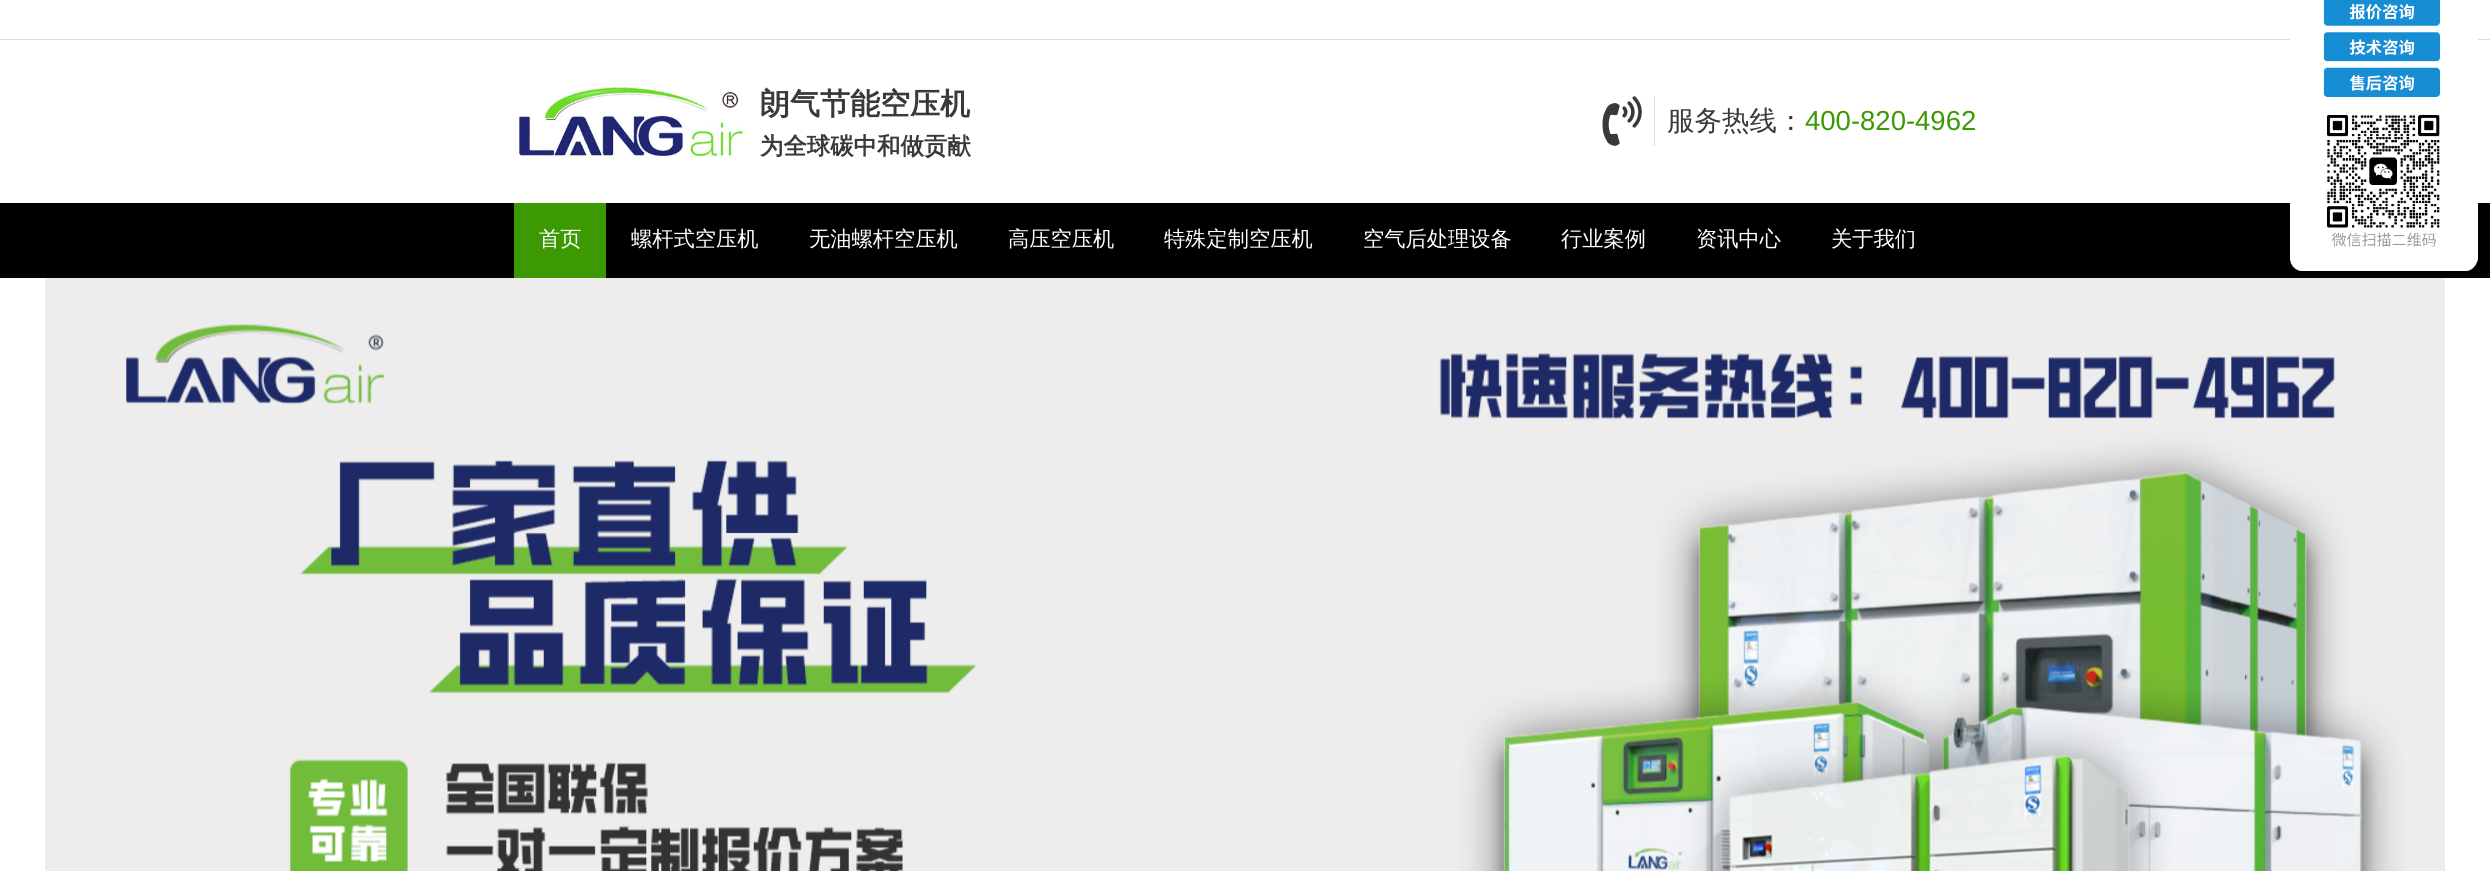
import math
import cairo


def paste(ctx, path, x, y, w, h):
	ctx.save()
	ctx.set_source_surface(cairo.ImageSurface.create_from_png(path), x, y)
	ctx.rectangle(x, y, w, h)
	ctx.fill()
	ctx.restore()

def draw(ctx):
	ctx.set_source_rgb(1, 1, 1)
	ctx.paint()
	ctx.set_source_rgb(0.863, 0.863, 0.863)
	ctx.rectangle(0, 39, 2490, 1)
	ctx.fill()
	paste(ctx, 'media/1.png', 519, 86, 228, 72)
	ctx.select_font_face('WenQuanYi Zen Hei', cairo.FONT_SLANT_NORMAL, cairo.FONT_WEIGHT_BOLD)
	ctx.set_font_size(30)
	ctx.set_source_rgb(0.224, 0.224, 0.224)
	ctx.move_to(760, 114)
	ctx.show_text('朗气节能空压机')
	ctx.set_font_size(23.4)
	ctx.move_to(760, 154)
	ctx.show_text('为全球碳中和做贡献')
	ctx.set_source_rgb(0.863, 0.863, 0.863)
	ctx.rectangle(1654, 96, 1, 50)
	ctx.fill()
	paste(ctx, 'media/2.png', 1602, 96, 40, 50)
	ctx.select_font_face('WenQuanYi Zen Hei Medium')
	ctx.set_font_size(27.5)
	ctx.set_source_rgb(0.224, 0.224, 0.224)
	ctx.move_to(1667, 130)
	ctx.show_text('服务热线：')
	ctx.select_font_face('Liberation Sans')
	ctx.set_source_rgb(0.235, 0.6, 0.008)
	ctx.move_to(1805, 130)
	ctx.show_text('400-820-4962')
	ctx.set_source_rgb(0, 0, 0)
	ctx.rectangle(0, 203, 2490, 75)
	ctx.fill()
	ctx.set_source_rgb(0.235, 0.6, 0.008)
	ctx.rectangle(514, 203, 92, 75)
	ctx.fill()
	ctx.select_font_face('WenQuanYi Zen Hei Medium')
	ctx.set_font_size(21.25)
	ctx.set_source_rgb(1, 1, 1)
	for x, y, s in [
		(539, 246, '首页'),
		(631, 246, '螺杆式空压机'),
		(809, 246, '无油螺杆空压机'),
		(1008, 246, '高压空压机'),
		(1164, 246, '特殊定制空压机'),
		(1363, 246, '空气后处理设备'),
		(1561, 246, '行业案例'),
		(1696, 246, '资讯中心'),
		(1831, 246, '关于我们'),
	]:
		ctx.move_to(x, y)
		ctx.show_text(s)
	paste(ctx, 'media/3.png', 2290, 0, 188, 271)
	paste(ctx, 'media/4.png', 45, 278, 2400, 593)


surface = cairo.ImageSurface(cairo.FORMAT_RGB24, 2490, 871)
ctx = cairo.Context(surface)
options = cairo.FontOptions()
options.set_hint_metrics(cairo.HINT_METRICS_OFF)
options.set_hint_style(cairo.HINT_STYLE_NONE)
ctx.set_font_options(options)
ctx.set_miter_limit(4)
draw(ctx)
surface.write_to_png('image.png')
